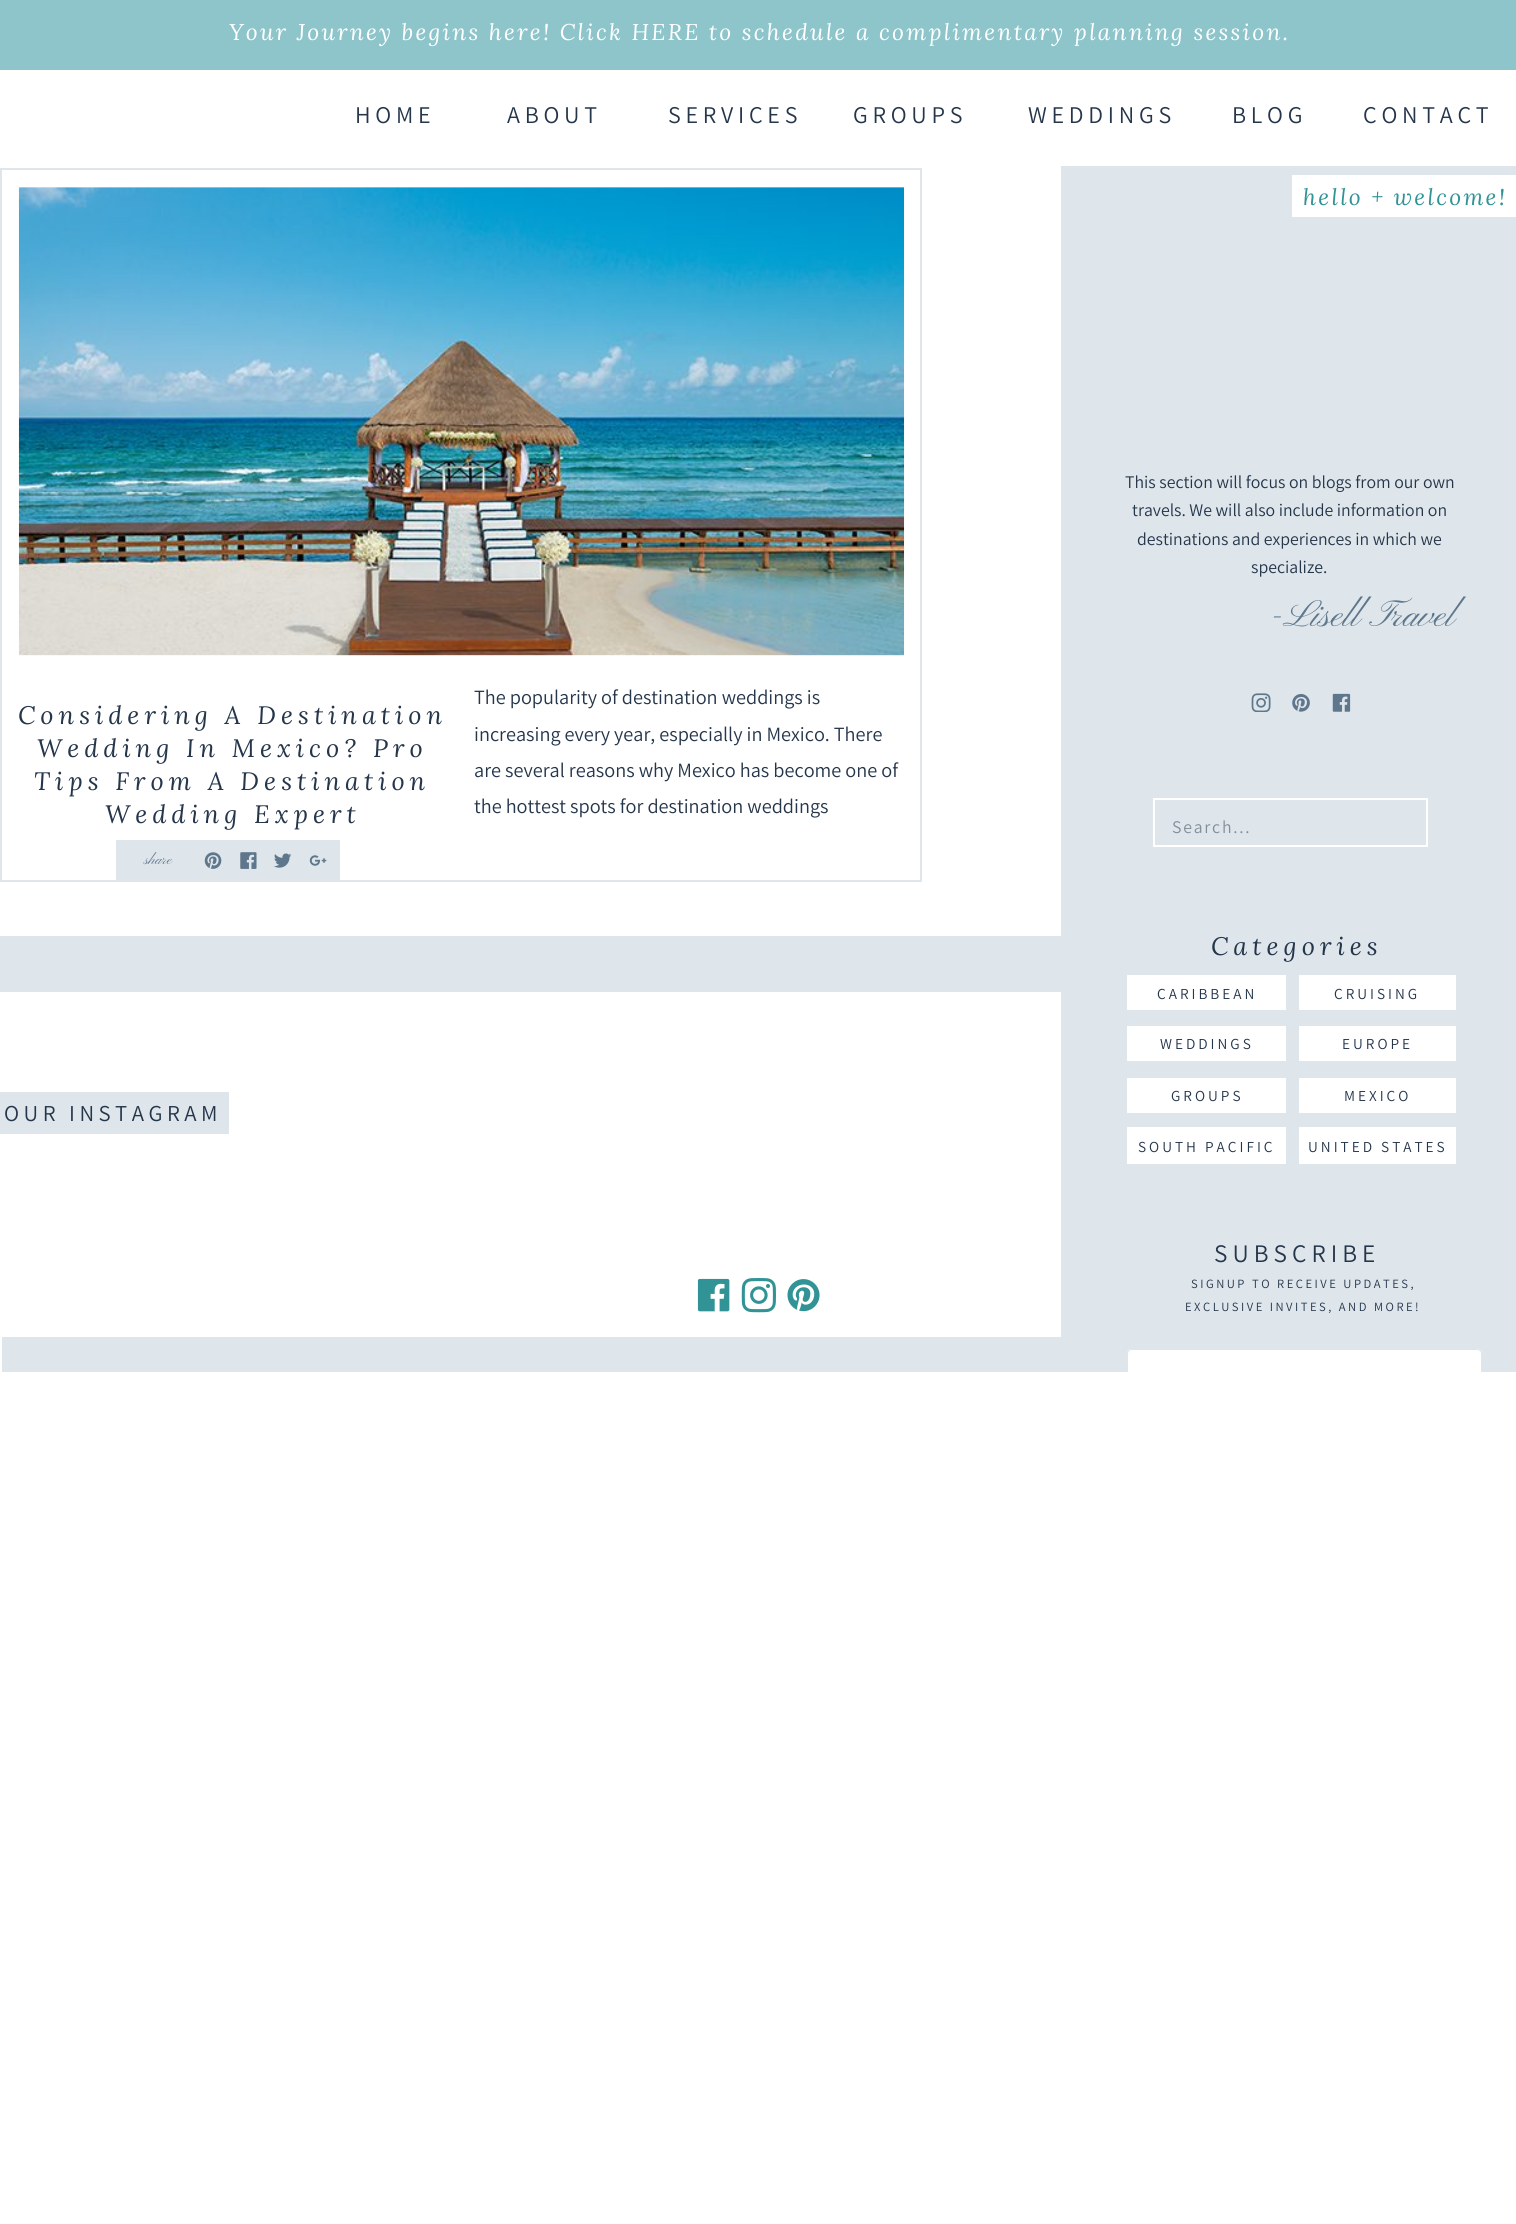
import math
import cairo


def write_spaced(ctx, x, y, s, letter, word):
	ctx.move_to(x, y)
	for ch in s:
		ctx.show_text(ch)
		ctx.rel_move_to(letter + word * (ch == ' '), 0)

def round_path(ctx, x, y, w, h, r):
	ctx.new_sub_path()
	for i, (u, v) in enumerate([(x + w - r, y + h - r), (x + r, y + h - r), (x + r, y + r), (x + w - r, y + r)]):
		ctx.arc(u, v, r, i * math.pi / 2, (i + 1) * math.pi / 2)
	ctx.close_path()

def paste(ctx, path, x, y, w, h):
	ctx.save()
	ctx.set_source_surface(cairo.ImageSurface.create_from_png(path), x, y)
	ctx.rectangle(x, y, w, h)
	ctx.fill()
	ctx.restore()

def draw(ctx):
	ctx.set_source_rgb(1, 1, 1)
	ctx.paint()
	ctx.set_source_rgb(0.553, 0.773, 0.796)
	ctx.rectangle(0, 0, 1516, 70)
	ctx.fill()
	ctx.select_font_face('Lora', cairo.FONT_SLANT_ITALIC)
	ctx.set_font_size(22.75)
	ctx.set_source_rgb(1, 1, 1)
	write_spaced(ctx, 229, 40, 'Your Journey begins here! Click HERE to schedule a complimentary planning session.', 2.28, 0)
	ctx.select_font_face('Assistant ExtraLight')
	ctx.set_font_size(24)
	ctx.set_source_rgb(0.145, 0.212, 0.294)
	for x, y, s in [
		(355, 123, 'HOME'),
		(507, 123, 'ABOUT'),
		(668, 123, 'SERVICES'),
		(853, 123, 'GROUPS'),
		(1028, 123, 'WEDDINGS'),
		(1232, 123, 'BLOG'),
		(1363, 123, 'CONTACT'),
	]:
		write_spaced(ctx, x, y, s, 4.75, 0)
	ctx.rectangle(1, 169, 920, 712)
	ctx.set_source_rgb(0.871, 0.902, 0.918)
	ctx.stroke()
	paste(ctx, 'media/1.png', 18, 187, 887, 469)
	ctx.select_font_face('Lora', cairo.FONT_SLANT_ITALIC)
	ctx.set_font_size(25.25)
	ctx.set_source_rgb(0.145, 0.212, 0.294)
	for x, y, s in [
		(18, 724, 'Considering A Destination'),
		(37, 757, 'Wedding In Mexico? Pro'),
		(34, 790, 'Tips From A Destination'),
		(105, 823, 'Wedding Expert'),
	]:
		write_spaced(ctx, x, y, s, 5.05, 0)
	ctx.select_font_face('Assistant ExtraLight')
	ctx.set_font_size(20.25)
	for x, y, s in [
		(474, 704, 'The popularity of destination weddings is'),
		(474, 741, 'increasing every year, especially in Mexico. There'),
		(474, 777, 'are several reasons why Mexico has become one of'),
		(474, 813, 'the hottest spots for destination weddings'),
	]:
		ctx.move_to(x, y)
		ctx.show_text(s)
	ctx.set_source_rgb(0.871, 0.902, 0.918)
	ctx.rectangle(116, 840, 224, 40)
	ctx.fill()
	ctx.select_font_face('Pinyon Script')
	ctx.set_font_size(15.25)
	ctx.set_source_rgb(0.369, 0.467, 0.549)
	ctx.move_to(144, 864)
	ctx.show_text('share')
	paste(ctx, 'media/2.png', 204, 852, 18, 17)
	paste(ctx, 'media/3.png', 240, 852, 17, 17)
	paste(ctx, 'media/4.png', 274, 853, 18, 15)
	paste(ctx, 'media/5.png', 309, 855, 18, 11)
	ctx.set_source_rgb(0.871, 0.902, 0.918)
	ctx.rectangle(1061, 166, 455, 1206)
	ctx.fill()
	ctx.set_source_rgb(1, 1, 1)
	ctx.rectangle(1292, 175, 224, 42)
	ctx.fill()
	ctx.select_font_face('Lora', cairo.FONT_SLANT_ITALIC)
	ctx.set_font_size(22.75)
	ctx.set_source_rgb(0.192, 0.576, 0.588)
	write_spaced(ctx, 1303, 205, 'hello + welcome!', 2.28, 0)
	ctx.select_font_face('Assistant ExtraLight')
	ctx.set_font_size(17.75)
	ctx.set_source_rgb(0.145, 0.212, 0.294)
	for x, y, s in [
		(1125, 488, 'This section will focus on blogs from our own'),
		(1132, 516, 'travels. We will also include information on'),
		(1137, 545, 'destinations and experiences in which we'),
		(1251, 573, 'specialize.'),
	]:
		ctx.move_to(x, y)
		ctx.show_text(s)
	ctx.select_font_face('Pinyon Script')
	ctx.set_font_size(38)
	ctx.set_source_rgb(0.369, 0.467, 0.549)
	ctx.move_to(1270, 626)
	ctx.show_text('-Lisell Travel')
	paste(ctx, 'media/6.png', 1251, 693, 20, 19)
	paste(ctx, 'media/7.png', 1292, 694, 18, 18)
	paste(ctx, 'media/8.png', 1332, 693, 19, 19)
	ctx.rectangle(1154, 799, 273, 47)
	ctx.set_source_rgb(1, 1, 1)
	ctx.stroke()
	ctx.select_font_face('Assistant ExtraLight')
	ctx.set_font_size(17.75)
	ctx.set_source_rgb(0.51, 0.557, 0.608)
	write_spaced(ctx, 1172, 833, 'Search...', 1.75, 0)
	ctx.select_font_face('Lora', cairo.FONT_SLANT_ITALIC)
	ctx.set_font_size(25.25)
	ctx.set_source_rgb(0.145, 0.212, 0.294)
	write_spaced(ctx, 1211, 955, 'Categories', 5.05, 0)
	ctx.set_source_rgb(1, 1, 1)
	ctx.rectangle(1127, 975, 159, 35)
	ctx.fill()
	ctx.rectangle(1299, 975, 157, 35)
	ctx.fill()
	ctx.select_font_face('Assistant ExtraLight')
	ctx.set_font_size(15.25)
	ctx.set_source_rgb(0.145, 0.212, 0.294)
	write_spaced(ctx, 1157, 999, 'CARIBBEAN', 3, 0)
	write_spaced(ctx, 1334, 999, 'CRUISING', 3, 0)
	ctx.set_source_rgb(1, 1, 1)
	ctx.rectangle(1127, 1026, 159, 35)
	ctx.fill()
	ctx.rectangle(1299, 1026, 157, 35)
	ctx.fill()
	ctx.set_source_rgb(0.145, 0.212, 0.294)
	write_spaced(ctx, 1160, 1049, 'WEDDINGS', 3, 0)
	write_spaced(ctx, 1342, 1049, 'EUROPE', 3, 0)
	ctx.set_source_rgb(1, 1, 1)
	ctx.rectangle(1127, 1078, 159, 35)
	ctx.fill()
	ctx.rectangle(1299, 1078, 157, 35)
	ctx.fill()
	ctx.set_source_rgb(0.145, 0.212, 0.294)
	write_spaced(ctx, 1171, 1101, 'GROUPS', 3, 0)
	write_spaced(ctx, 1344, 1101, 'MEXICO', 3, 0)
	ctx.set_source_rgb(1, 1, 1)
	ctx.rectangle(1127, 1127, 159, 37)
	ctx.fill()
	ctx.rectangle(1299, 1127, 157, 37)
	ctx.fill()
	ctx.set_source_rgb(0.145, 0.212, 0.294)
	write_spaced(ctx, 1138, 1152, 'SOUTH PACIFIC', 3, 0)
	write_spaced(ctx, 1308, 1152, 'UNITED STATES', 3, 0)
	ctx.set_font_size(25.25)
	write_spaced(ctx, 1214, 1262, 'SUBSCRIBE', 5.05, 0)
	ctx.set_font_size(12.6)
	write_spaced(ctx, 1191, 1288, 'SIGNUP TO RECEIVE UPDATES,', 2.5, 0)
	write_spaced(ctx, 1185, 1311, 'EXCLUSIVE INVITES, AND MORE!', 2.5, 0)
	ctx.set_source_rgb(1, 1, 1)
	ctx.new_path()
	ctx.move_to(1132, 1349)
	ctx.line_to(1477, 1349)
	ctx.curve_to(1480, 1349, 1482, 1351, 1482, 1354)
	ctx.line_to(1482, 1372)
	ctx.line_to(1127, 1372)
	ctx.line_to(1127, 1354)
	ctx.curve_to(1127, 1351, 1129, 1349, 1132, 1349)
	ctx.close_path()
	ctx.fill()
	ctx.save()
	ctx.rectangle(0, 0, 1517, 1372)
	ctx.clip()
	round_path(ctx, 1127.5, 1349.5, 354, 54, 4.5)
	ctx.set_source_rgb(0.871, 0.902, 0.918)
	ctx.set_line_width(1)
	ctx.stroke()
	ctx.restore()
	ctx.set_source_rgb(0.871, 0.902, 0.918)
	ctx.rectangle(0, 936, 1061, 56)
	ctx.fill()
	ctx.rectangle(0, 1092, 229, 42)
	ctx.fill()
	ctx.set_font_size(22.75)
	ctx.set_source_rgb(0.145, 0.212, 0.294)
	write_spaced(ctx, 4, 1121, 'OUR INSTAGRAM', 4.5, 0)
	paste(ctx, 'media/9.png', 697, 1278, 33, 34)
	paste(ctx, 'media/10.png', 741, 1278, 35, 35)
	paste(ctx, 'media/11.png', 787, 1279, 33, 33)
	ctx.set_source_rgb(0.871, 0.902, 0.918)
	ctx.rectangle(2, 1337, 1059, 35)
	ctx.fill()


surface = cairo.ImageSurface(cairo.FORMAT_RGB24, 1516, 2224)
ctx = cairo.Context(surface)
options = cairo.FontOptions()
options.set_hint_metrics(cairo.HINT_METRICS_OFF)
options.set_hint_style(cairo.HINT_STYLE_NONE)
ctx.set_font_options(options)
ctx.set_miter_limit(4)
draw(ctx)
surface.write_to_png('image.png')
